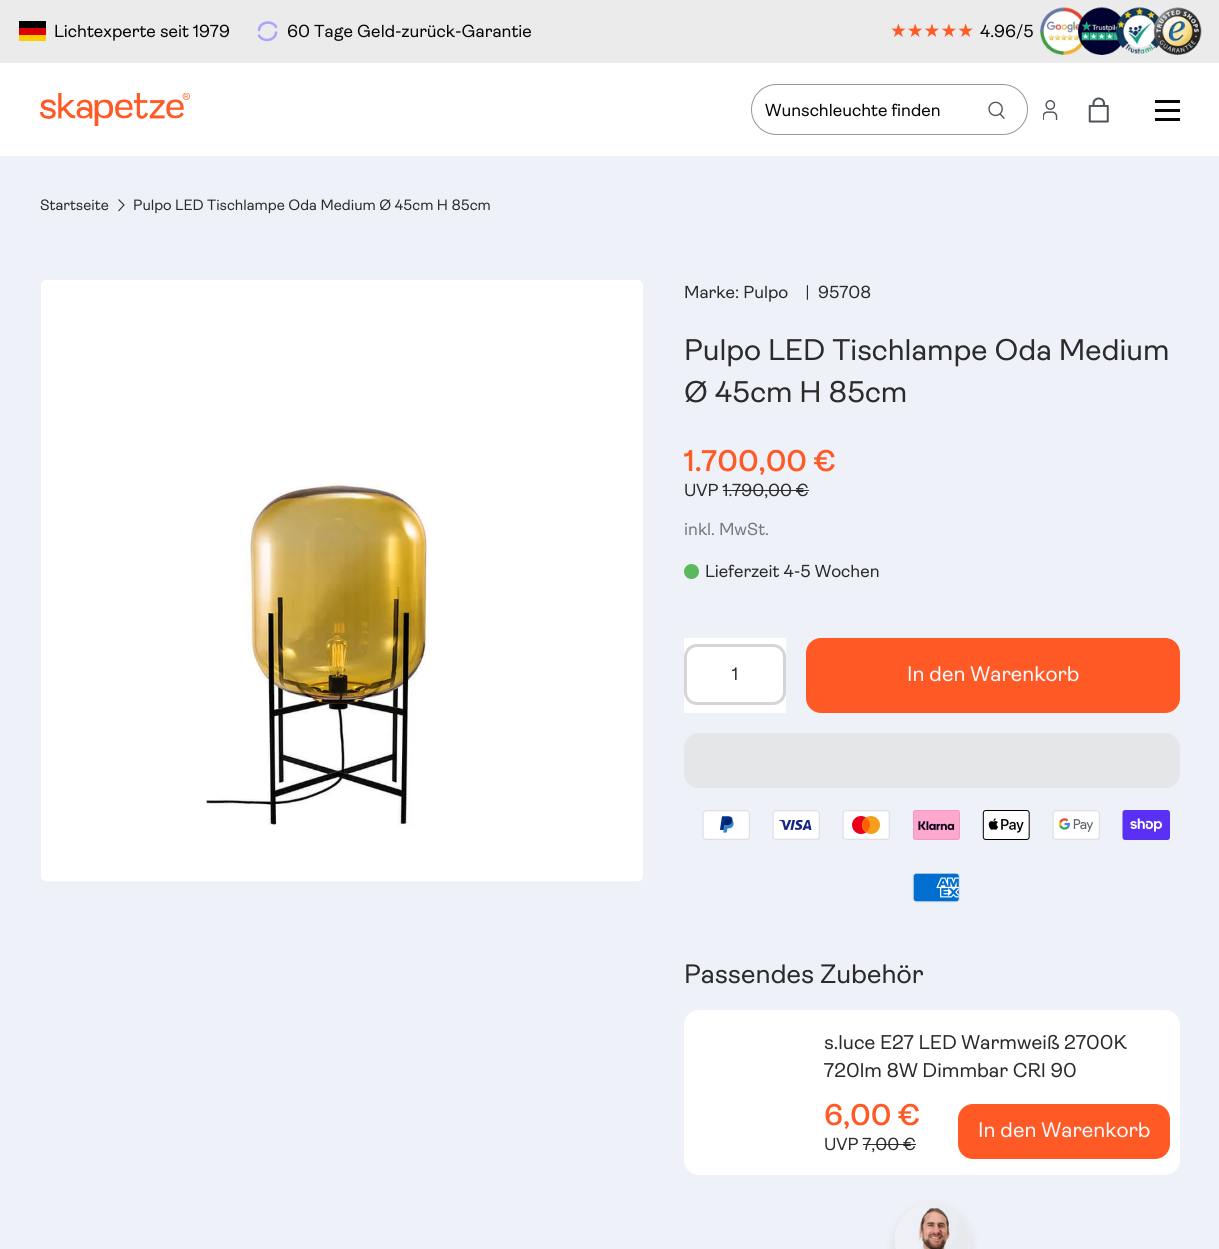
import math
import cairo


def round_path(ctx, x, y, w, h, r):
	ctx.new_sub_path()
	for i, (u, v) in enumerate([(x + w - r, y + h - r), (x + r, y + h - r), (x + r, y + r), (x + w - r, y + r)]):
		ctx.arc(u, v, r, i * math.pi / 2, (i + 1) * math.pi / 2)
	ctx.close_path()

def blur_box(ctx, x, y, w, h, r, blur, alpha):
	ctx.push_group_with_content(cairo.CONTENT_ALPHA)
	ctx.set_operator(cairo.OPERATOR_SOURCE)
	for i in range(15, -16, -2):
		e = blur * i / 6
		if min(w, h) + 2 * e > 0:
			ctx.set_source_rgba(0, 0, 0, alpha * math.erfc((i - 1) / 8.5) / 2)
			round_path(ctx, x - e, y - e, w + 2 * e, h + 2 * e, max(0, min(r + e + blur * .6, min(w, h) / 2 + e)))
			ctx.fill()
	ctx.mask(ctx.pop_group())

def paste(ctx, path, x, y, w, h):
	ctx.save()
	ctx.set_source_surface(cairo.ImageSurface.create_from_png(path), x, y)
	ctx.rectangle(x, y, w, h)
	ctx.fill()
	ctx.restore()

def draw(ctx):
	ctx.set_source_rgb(0.933, 0.949, 0.969)
	ctx.paint()
	ctx.set_source_rgb(0.918, 0.918, 0.918)
	ctx.rectangle(0, 0, 1219, 63)
	ctx.fill()
	ctx.set_source_rgb(0, 0, 0)
	ctx.rectangle(19, 21, 27, 7)
	ctx.fill()
	ctx.set_source_rgb(0.867, 0, 0)
	ctx.rectangle(19, 28, 27, 7)
	ctx.fill()
	ctx.set_source_rgb(1, 0.8, 0)
	ctx.rectangle(19, 35, 27, 6)
	ctx.fill()
	ctx.select_font_face('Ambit')
	ctx.set_font_size(17.5)
	ctx.set_source_rgb(0.027, 0.027, 0.027)
	ctx.move_to(54, 37)
	ctx.show_text('Lichtexperte seit 1979')
	ctx.new_path()
	ctx.move_to(276, 27)
	ctx.curve_to(272.5, 20, 259.5, 21.5, 259, 30)
	ctx.move_to(259, 35.5)
	ctx.curve_to(262.5, 42.5, 275.5, 41, 276, 32.5)
	ctx.set_source_rgb(0.667, 0.639, 1)
	ctx.set_line_width(2.5)
	ctx.set_line_cap(cairo.LINE_CAP_ROUND)
	ctx.set_line_join(cairo.LINE_JOIN_ROUND)
	ctx.stroke()
	ctx.set_source_rgb(0.027, 0.027, 0.027)
	ctx.move_to(287, 37)
	ctx.show_text('60 Tage Geld-zurück-Garantie')
	ctx.select_font_face('DejaVu Sans')
	ctx.set_font_size(18.75)
	gradient = cairo.LinearGradient(890, 31, 974, 31)
	gradient.add_color_stop_rgba(1, 1, 0.349, 0.149, 1)
	gradient.add_color_stop_rgba(1, 0.933, 0.859, 0.757, 1)
	ctx.set_source(gradient)
	ctx.move_to(890, 37)
	ctx.show_text('★★★★★')
	ctx.select_font_face('Ambit')
	ctx.set_font_size(17.5)
	ctx.set_source_rgb(0.027, 0.027, 0.027)
	ctx.move_to(980, 37)
	ctx.show_text('4.96/5')
	paste(ctx, 'media/1.png', 1040, 7, 162, 48)
	ctx.set_source_rgb(1, 1, 1)
	ctx.rectangle(0, 63, 1219, 93)
	ctx.fill()
	paste(ctx, 'media/2.png', 40, 93, 150, 33)
	round_path(ctx, 751.5, 84.5, 276, 50, 25)
	ctx.set_source_rgb(0.584, 0.592, 0.616)
	ctx.set_line_width(1)
	ctx.set_line_cap(cairo.LINE_CAP_BUTT)
	ctx.set_line_join(cairo.LINE_JOIN_MITER)
	ctx.stroke()
	ctx.set_source_rgb(0.027, 0.027, 0.027)
	ctx.move_to(765, 116)
	ctx.show_text('Wunschleuchte finden')
	paste(ctx, 'media/3.png', 988, 101, 17, 18)
	paste(ctx, 'media/4.png', 1043, 100, 15, 20)
	paste(ctx, 'media/5.png', 1088, 97, 21, 26)
	ctx.rectangle(1155, 100, 25, 3)
	ctx.rectangle(1155, 118, 25, 3)
	ctx.rectangle(1155, 109, 25, 3)
	ctx.fill()
	ctx.set_font_size(15)
	ctx.set_source_rgb(0.165, 0.169, 0.165)
	ctx.move_to(40, 210)
	ctx.show_text('Startseite')
	ctx.new_path()
	ctx.move_to(118.5, 199.5)
	ctx.line_to(124, 205)
	ctx.line_to(118.5, 211)
	ctx.set_line_width(1.1)
	ctx.stroke()
	ctx.move_to(133, 210)
	ctx.show_text('Pulpo LED Tischlampe Oda Medium Ø 45cm H 85cm')
	ctx.save()
	ctx.rectangle(41, 280, 602, 601)
	ctx.clip()
	ctx.set_source_rgb(1, 1, 1)
	round_path(ctx, 40, 279, 604, 604, 10)
	ctx.fill()
	ctx.restore()
	paste(ctx, 'media/6.png', 41, 280, 600, 602)
	ctx.set_font_size(17.5)
	for x, y, s in [
		(684, 298, 'Marke: Pulpo'),
		(805, 298, '|'),
		(818, 298, '95708'),
	]:
		ctx.move_to(x, y)
		ctx.show_text(s)
	ctx.set_font_size(30)
	ctx.move_to(684, 360)
	ctx.show_text('Pulpo LED Tischlampe Oda Medium')
	ctx.move_to(684, 402)
	ctx.show_text('Ø 45cm H 85cm')
	ctx.select_font_face('Ambit SemiBold')
	ctx.set_source_rgb(1, 0.349, 0.149)
	ctx.move_to(684, 471)
	ctx.show_text('1.700,00 €')
	ctx.select_font_face('Ambit')
	ctx.set_font_size(17.5)
	ctx.set_source_rgb(0.165, 0.169, 0.165)
	ctx.move_to(684, 496)
	ctx.show_text('UVP 1.790,00 €')
	ctx.rectangle(723, 490, 86, 1)
	ctx.fill()
	ctx.set_source_rgb(0.451, 0.482, 0.502)
	ctx.move_to(684, 535)
	ctx.show_text('inkl. MwSt.')
	ctx.set_source_rgb(0.361, 0.722, 0.361)
	ctx.new_path()
	ctx.arc(691.5, 571.5, 7.5, 0, 2 * math.pi)
	ctx.fill()
	ctx.set_source_rgb(0.165, 0.169, 0.165)
	ctx.move_to(705, 577)
	ctx.show_text('Lieferzeit 4-5 Wochen')
	ctx.set_source_rgb(1, 1, 1)
	ctx.rectangle(684, 638, 102, 75)
	ctx.fill()
	round_path(ctx, 685.5, 645.5, 99, 58, 11.5)
	ctx.set_source_rgb(0.831, 0.835, 0.831)
	ctx.set_line_width(3)
	ctx.stroke()
	ctx.set_font_size(18)
	ctx.set_source_rgb(0.165, 0.169, 0.165)
	ctx.move_to(732, 680)
	ctx.show_text('1')
	ctx.set_source_rgb(1, 0.349, 0.149)
	round_path(ctx, 806, 638, 374, 75, 15)
	ctx.fill()
	ctx.set_font_size(21.25)
	ctx.set_source_rgb(0.965, 0.973, 0.984)
	ctx.move_to(907, 681)
	ctx.show_text('In den Warenkorb')
	ctx.set_source_rgb(0.894, 0.902, 0.91)
	round_path(ctx, 684, 733, 496, 55, 15)
	ctx.fill()
	paste(ctx, 'media/7.png', 702, 810, 48, 30)
	paste(ctx, 'media/8.png', 772, 810, 48, 30)
	paste(ctx, 'media/9.png', 842, 810, 48, 30)
	paste(ctx, 'media/10.png', 913, 810, 47, 30)
	paste(ctx, 'media/11.png', 982, 810, 48, 30)
	paste(ctx, 'media/12.png', 1052, 810, 48, 30)
	paste(ctx, 'media/13.png', 1122, 810, 48, 30)
	paste(ctx, 'media/14.png', 912, 873, 48, 30)
	ctx.set_font_size(26.75)
	ctx.set_source_rgb(0.165, 0.169, 0.165)
	ctx.move_to(684, 983)
	ctx.show_text('Passendes Zubehör')
	ctx.set_source_rgb(1, 1, 1)
	round_path(ctx, 684, 1010, 496, 165, 15)
	ctx.fill()
	ctx.set_font_size(20)
	ctx.set_source_rgb(0.165, 0.169, 0.165)
	ctx.move_to(824, 1049)
	ctx.show_text('s.luce E27 LED Warmweiß 2700K')
	ctx.move_to(824, 1077)
	ctx.show_text('720lm 8W Dimmbar CRI 90')
	ctx.select_font_face('Ambit SemiBold')
	ctx.set_font_size(30)
	ctx.set_source_rgb(1, 0.349, 0.149)
	ctx.move_to(824, 1125)
	ctx.show_text('6,00 €')
	ctx.select_font_face('Ambit')
	ctx.set_font_size(17.5)
	ctx.set_source_rgb(0.165, 0.169, 0.165)
	ctx.move_to(824, 1150)
	ctx.show_text('UVP 7,00 €')
	ctx.rectangle(863, 1144, 53, 1)
	ctx.fill()
	ctx.set_source_rgb(1, 0.349, 0.149)
	round_path(ctx, 958, 1104, 212, 55, 15)
	ctx.fill()
	ctx.set_font_size(21.25)
	ctx.set_source_rgb(0.965, 0.973, 0.984)
	ctx.move_to(978, 1137)
	ctx.show_text('In den Warenkorb')
	ctx.set_source_rgb(0, 0, 0)
	blur_box(ctx, 895, 1208, 75, 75, 37.5, 5, 0.1)
	ctx.set_source_rgb(1, 1, 1)
	ctx.arc(932.5, 1240.5, 37.5, 0, 2 * math.pi)
	ctx.fill()
	paste(ctx, 'media/15.png', 895, 1203, 75, 46)


surface = cairo.ImageSurface(cairo.FORMAT_RGB24, 1219, 1249)
ctx = cairo.Context(surface)
options = cairo.FontOptions()
options.set_hint_metrics(cairo.HINT_METRICS_OFF)
options.set_hint_style(cairo.HINT_STYLE_NONE)
ctx.set_font_options(options)
ctx.set_miter_limit(4)
draw(ctx)
surface.write_to_png('image.png')
